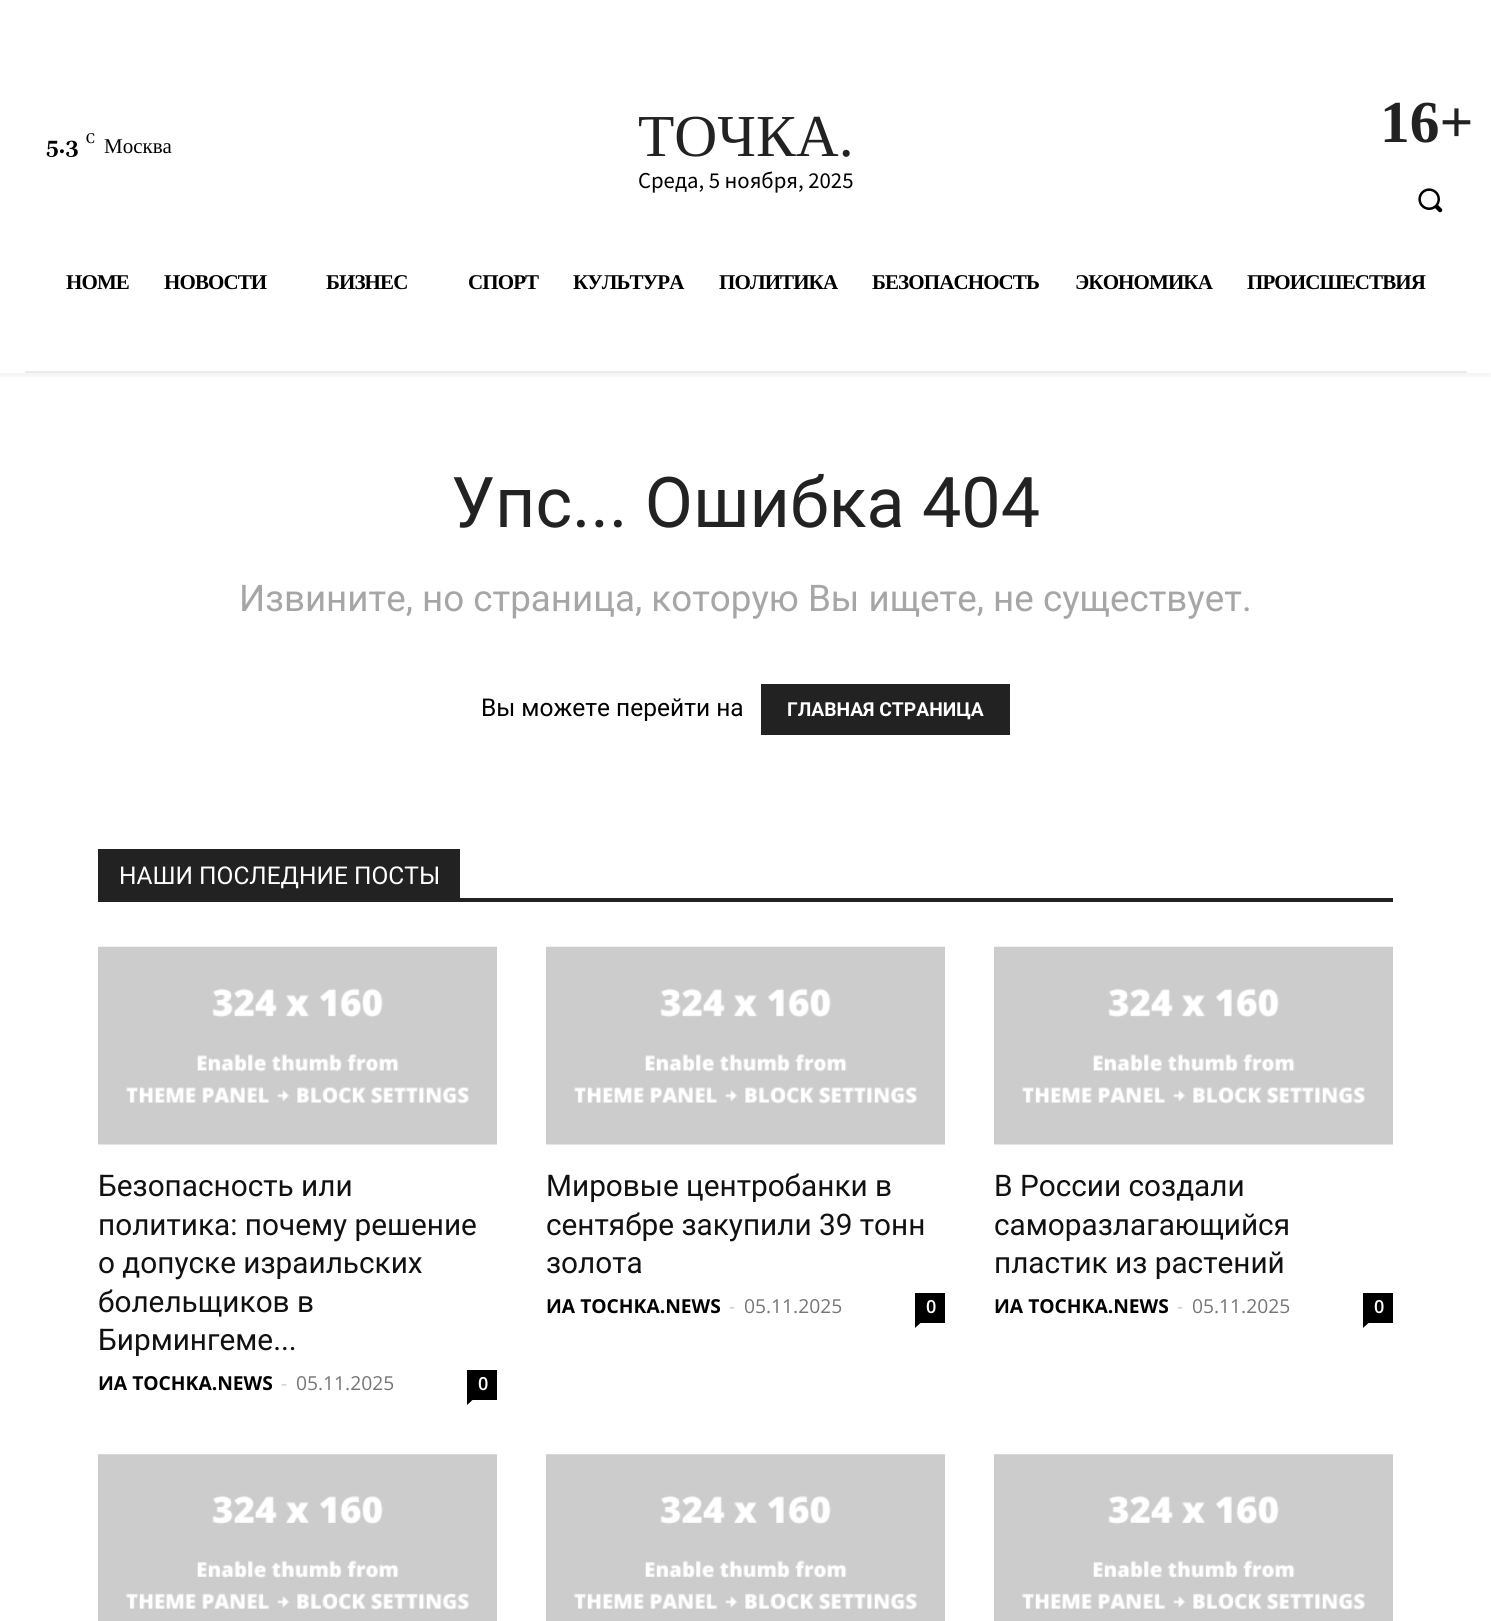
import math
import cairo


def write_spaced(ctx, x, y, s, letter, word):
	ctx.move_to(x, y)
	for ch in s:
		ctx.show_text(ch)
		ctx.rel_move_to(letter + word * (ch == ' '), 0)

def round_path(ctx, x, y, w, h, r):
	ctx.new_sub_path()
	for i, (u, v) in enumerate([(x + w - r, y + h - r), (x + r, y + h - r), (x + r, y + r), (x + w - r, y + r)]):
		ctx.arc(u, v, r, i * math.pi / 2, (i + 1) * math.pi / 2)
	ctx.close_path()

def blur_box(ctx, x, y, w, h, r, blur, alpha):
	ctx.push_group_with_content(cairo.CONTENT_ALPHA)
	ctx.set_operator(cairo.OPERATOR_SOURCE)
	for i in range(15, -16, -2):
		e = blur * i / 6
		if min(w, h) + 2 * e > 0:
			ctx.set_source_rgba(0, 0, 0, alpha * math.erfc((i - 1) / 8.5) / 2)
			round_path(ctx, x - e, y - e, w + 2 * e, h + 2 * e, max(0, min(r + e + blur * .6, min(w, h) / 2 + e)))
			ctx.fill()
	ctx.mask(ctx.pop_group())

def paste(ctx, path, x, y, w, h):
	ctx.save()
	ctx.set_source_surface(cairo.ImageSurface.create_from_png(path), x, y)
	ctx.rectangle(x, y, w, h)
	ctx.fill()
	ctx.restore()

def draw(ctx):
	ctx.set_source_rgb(1, 1, 1)
	ctx.paint()
	ctx.select_font_face('Gelasio')
	ctx.set_font_size(14)
	ctx.set_source_rgb(0, 0, 0)
	ctx.move_to(86, 143)
	ctx.show_text('C')
	ctx.select_font_face('Gelasio', cairo.FONT_SLANT_NORMAL, cairo.FONT_WEIGHT_BOLD)
	ctx.set_font_size(21)
	ctx.move_to(46, 153)
	ctx.show_text('5.3')
	ctx.select_font_face('Liberation Serif')
	ctx.move_to(104, 153)
	ctx.show_text('Москва')
	ctx.set_font_size(59.5)
	ctx.set_source_rgb(0.133, 0.133, 0.133)
	ctx.move_to(638, 156)
	ctx.show_text('ТОЧКА.')
	ctx.select_font_face('Source Sans Pro')
	ctx.set_font_size(22.75)
	ctx.set_source_rgb(0, 0, 0)
	ctx.move_to(638, 188)
	ctx.show_text('Среда, 5 ноября, 2025')
	ctx.select_font_face('Liberation Serif', cairo.FONT_SLANT_NORMAL, cairo.FONT_WEIGHT_BOLD)
	ctx.set_font_size(59.5)
	ctx.set_source_rgb(0.133, 0.133, 0.133)
	ctx.move_to(1380, 142)
	ctx.show_text('16+')
	paste(ctx, 'media/1.png', 1418, 188, 25, 25)
	ctx.set_source_rgb(0.918, 0.918, 0.918)
	ctx.rectangle(25, 371, 1442, 2)
	ctx.fill()
	ctx.save()
	ctx.rectangle(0, 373, 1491, 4)
	ctx.clip()
	ctx.set_source_rgb(0, 0, 0)
	blur_box(ctx, 0, 247, 1491, 129, 0, 3.5, 0.06)
	ctx.restore()
	ctx.set_font_size(21)
	ctx.set_source_rgb(0, 0, 0)
	for x, y, s in [
		(66, 289, 'HOME'),
		(164, 289, 'НОВОСТИ'),
		(326, 289, 'БИЗНЕС'),
		(468, 289, 'СПОРТ'),
		(573, 289, 'КУЛЬТУРА'),
		(719, 289, 'ПОЛИТИКА'),
		(872, 289, 'БЕЗОПАСНОСТЬ'),
		(1075, 289, 'ЭКОНОМИКА'),
		(1247, 289, 'ПРОИСШЕСТВИЯ'),
	]:
		write_spaced(ctx, x, y, s, -0.9, 0)
	ctx.select_font_face('Roboto')
	ctx.set_font_size(70)
	ctx.set_source_rgb(0.133, 0.133, 0.133)
	ctx.move_to(451, 527)
	ctx.show_text('Упс... Ошибка 404')
	ctx.set_font_size(36.75)
	ctx.set_source_rgb(0.651, 0.651, 0.651)
	ctx.move_to(239, 611)
	ctx.show_text('Извините, но страница, которую Вы ищете, не существует.')
	ctx.set_font_size(24.5)
	ctx.set_source_rgb(0, 0, 0)
	ctx.move_to(481, 716)
	ctx.show_text('Вы можете перейти на')
	ctx.set_source_rgb(0.133, 0.133, 0.133)
	ctx.rectangle(761, 684, 249, 51)
	ctx.fill()
	ctx.select_font_face('Roboto', cairo.FONT_SLANT_NORMAL, cairo.FONT_WEIGHT_BOLD)
	ctx.set_font_size(19.25)
	ctx.set_source_rgb(1, 1, 1)
	ctx.move_to(787, 716)
	ctx.show_text('ГЛАВНАЯ СТРАНИЦА')
	ctx.set_source_rgb(0.133, 0.133, 0.133)
	ctx.rectangle(98, 898, 1295, 4)
	ctx.fill()
	ctx.rectangle(98, 849, 362, 49)
	ctx.fill()
	ctx.select_font_face('Roboto')
	ctx.set_font_size(24.5)
	ctx.set_source_rgb(1, 1, 1)
	ctx.move_to(119, 884)
	ctx.show_text('НАШИ ПОСЛЕДНИЕ ПОСТЫ')
	paste(ctx, 'media/2.png', 98, 946, 399, 199)
	ctx.set_font_size(29.75)
	ctx.set_source_rgb(0.067, 0.067, 0.067)
	for x, y, s in [
		(98, 1196, 'Безопасность или'),
		(98, 1235, 'политика: почему решение'),
		(98, 1273, 'о допуске израильских'),
		(98, 1312, 'болельщиков в'),
		(98, 1350, 'Бирмингеме...'),
	]:
		ctx.move_to(x, y)
		ctx.show_text(s)
	ctx.select_font_face('Open Sans', cairo.FONT_SLANT_NORMAL, cairo.FONT_WEIGHT_BOLD)
	ctx.set_font_size(19.25)
	ctx.set_source_rgb(0, 0, 0)
	ctx.move_to(98, 1390)
	ctx.show_text('ИА TOCHKA.NEWS')
	ctx.select_font_face('Open Sans')
	ctx.set_source_rgb(0.8, 0.8, 0.8)
	ctx.move_to(281, 1390)
	ctx.show_text('-')
	ctx.set_source_rgb(0.463, 0.463, 0.463)
	ctx.move_to(296, 1390)
	ctx.show_text('05.11.2025')
	ctx.set_source_rgb(0, 0, 0)
	ctx.rectangle(467, 1370, 30, 30)
	ctx.fill()
	ctx.select_font_face('Open Sans SemiBold')
	ctx.set_font_size(18)
	ctx.set_source_rgb(1, 1, 1)
	ctx.move_to(478, 1390)
	ctx.show_text('0')
	ctx.set_source_rgb(0, 0, 0)
	ctx.new_path()
	ctx.move_to(467, 1400)
	ctx.line_to(472.5, 1400)
	ctx.line_to(467, 1405)
	ctx.close_path()
	ctx.fill()
	paste(ctx, 'media/2.png', 546, 946, 399, 199)
	ctx.select_font_face('Roboto')
	ctx.set_font_size(29.75)
	ctx.set_source_rgb(0.067, 0.067, 0.067)
	for x, y, s in [
		(546, 1196, 'Мировые центробанки в'),
		(546, 1235, 'сентябре закупили 39 тонн'),
		(546, 1273, 'золота'),
	]:
		ctx.move_to(x, y)
		ctx.show_text(s)
	ctx.select_font_face('Open Sans', cairo.FONT_SLANT_NORMAL, cairo.FONT_WEIGHT_BOLD)
	ctx.set_font_size(19.25)
	ctx.set_source_rgb(0, 0, 0)
	ctx.move_to(546, 1313)
	ctx.show_text('ИА TOCHKA.NEWS')
	ctx.select_font_face('Open Sans')
	ctx.set_source_rgb(0.8, 0.8, 0.8)
	ctx.move_to(729, 1313)
	ctx.show_text('-')
	ctx.set_source_rgb(0.463, 0.463, 0.463)
	ctx.move_to(744, 1313)
	ctx.show_text('05.11.2025')
	ctx.set_source_rgb(0, 0, 0)
	ctx.rectangle(915, 1293, 30, 30)
	ctx.fill()
	ctx.select_font_face('Open Sans SemiBold')
	ctx.set_font_size(18)
	ctx.set_source_rgb(1, 1, 1)
	ctx.move_to(926, 1313)
	ctx.show_text('0')
	ctx.set_source_rgb(0, 0, 0)
	ctx.new_path()
	ctx.move_to(915, 1323)
	ctx.line_to(920.5, 1323)
	ctx.line_to(915, 1328)
	ctx.close_path()
	ctx.fill()
	paste(ctx, 'media/2.png', 994, 946, 399, 199)
	ctx.select_font_face('Roboto')
	ctx.set_font_size(29.75)
	ctx.set_source_rgb(0.067, 0.067, 0.067)
	for x, y, s in [
		(994, 1196, 'В России создали'),
		(994, 1235, 'саморазлагающийся'),
		(994, 1273, 'пластик из растений'),
	]:
		ctx.move_to(x, y)
		ctx.show_text(s)
	ctx.select_font_face('Open Sans', cairo.FONT_SLANT_NORMAL, cairo.FONT_WEIGHT_BOLD)
	ctx.set_font_size(19.25)
	ctx.set_source_rgb(0, 0, 0)
	ctx.move_to(994, 1313)
	ctx.show_text('ИА TOCHKA.NEWS')
	ctx.select_font_face('Open Sans')
	ctx.set_source_rgb(0.8, 0.8, 0.8)
	ctx.move_to(1177, 1313)
	ctx.show_text('-')
	ctx.set_source_rgb(0.463, 0.463, 0.463)
	ctx.move_to(1192, 1313)
	ctx.show_text('05.11.2025')
	ctx.set_source_rgb(0, 0, 0)
	ctx.rectangle(1363, 1293, 30, 30)
	ctx.fill()
	ctx.select_font_face('Open Sans SemiBold')
	ctx.set_font_size(18)
	ctx.set_source_rgb(1, 1, 1)
	ctx.move_to(1374, 1313)
	ctx.show_text('0')
	ctx.set_source_rgb(0, 0, 0)
	ctx.new_path()
	ctx.move_to(1363, 1323)
	ctx.line_to(1368.5, 1323)
	ctx.line_to(1363, 1328)
	ctx.close_path()
	ctx.fill()
	paste(ctx, 'media/3.png', 98, 1454, 399, 167)
	paste(ctx, 'media/3.png', 546, 1454, 399, 167)
	paste(ctx, 'media/3.png', 994, 1454, 399, 167)


surface = cairo.ImageSurface(cairo.FORMAT_RGB24, 1491, 1621)
ctx = cairo.Context(surface)
options = cairo.FontOptions()
options.set_hint_metrics(cairo.HINT_METRICS_OFF)
options.set_hint_style(cairo.HINT_STYLE_NONE)
ctx.set_font_options(options)
ctx.set_miter_limit(4)
draw(ctx)
surface.write_to_png('image.png')
